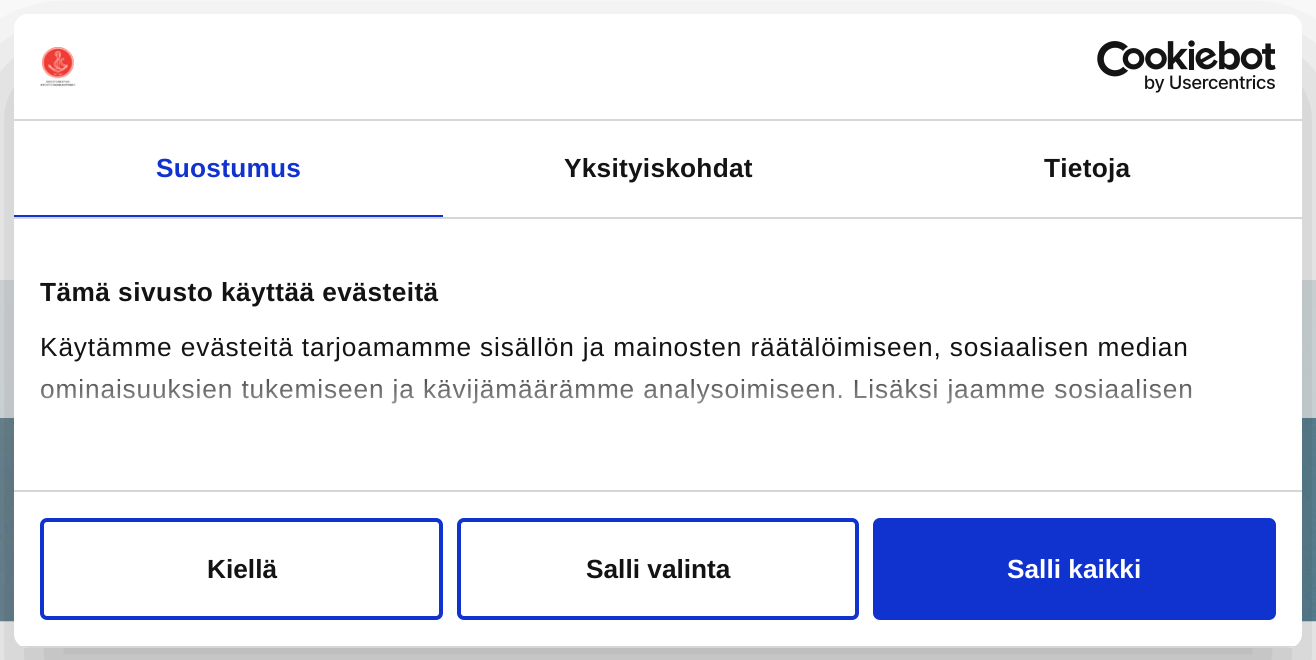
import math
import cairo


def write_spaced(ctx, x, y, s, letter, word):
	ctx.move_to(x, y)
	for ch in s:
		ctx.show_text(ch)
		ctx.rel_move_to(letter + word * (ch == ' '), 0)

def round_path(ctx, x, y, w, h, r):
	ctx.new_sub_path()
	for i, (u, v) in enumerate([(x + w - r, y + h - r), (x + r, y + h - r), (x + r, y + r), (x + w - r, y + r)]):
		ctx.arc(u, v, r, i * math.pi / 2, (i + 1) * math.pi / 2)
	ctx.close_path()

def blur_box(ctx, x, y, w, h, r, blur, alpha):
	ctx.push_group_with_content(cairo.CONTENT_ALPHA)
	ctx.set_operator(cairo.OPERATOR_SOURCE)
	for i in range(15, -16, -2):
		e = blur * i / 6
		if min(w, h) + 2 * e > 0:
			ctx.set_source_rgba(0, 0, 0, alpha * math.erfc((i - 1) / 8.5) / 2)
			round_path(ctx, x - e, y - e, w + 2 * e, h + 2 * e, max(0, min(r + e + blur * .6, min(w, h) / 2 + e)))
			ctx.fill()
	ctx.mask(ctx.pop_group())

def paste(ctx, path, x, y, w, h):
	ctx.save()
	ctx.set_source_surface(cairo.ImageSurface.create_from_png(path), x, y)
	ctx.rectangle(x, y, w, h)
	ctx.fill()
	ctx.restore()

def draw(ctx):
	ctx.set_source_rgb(1, 1, 1)
	ctx.paint()
	paste(ctx, 'media/3.png', 0, 280, 1316, 342)
	ctx.set_source_rgba(1, 1, 1, 0.8)
	ctx.rectangle(0, 280, 1316, 138)
	ctx.fill()
	ctx.set_source_rgb(0, 0, 0)
	blur_box(ctx, 14, 70, 1288, 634, 14, 59.5, 0.3)
	ctx.set_source_rgb(1, 1, 1)
	round_path(ctx, 14, 14, 1288, 634, 14)
	ctx.fill()
	ctx.set_source_rgb(0.839, 0.839, 0.839)
	ctx.rectangle(14, 119, 1288, 2)
	ctx.fill()
	paste(ctx, 'media/1.png', 40, 47, 36, 40)
	paste(ctx, 'media/2.png', 1097, 40, 179, 53)
	ctx.rectangle(14, 217, 1288, 2)
	ctx.fill()
	ctx.set_source_rgb(0.063, 0.196, 0.812)
	ctx.rectangle(14, 215, 429, 2)
	ctx.fill()
	ctx.select_font_face('Liberation Sans', cairo.FONT_SLANT_NORMAL, cairo.FONT_WEIGHT_BOLD)
	ctx.set_font_size(26.25)
	write_spaced(ctx, 156, 177, 'Suostumus', 0.25, 0)
	ctx.set_source_rgb(0.078, 0.078, 0.078)
	write_spaced(ctx, 564, 177, 'Yksityiskohdat', 0.25, 0)
	write_spaced(ctx, 1044, 177, 'Tietoja', 0.25, 0)
	ctx.set_source_rgb(0.839, 0.839, 0.839)
	ctx.rectangle(14, 490, 1288, 2)
	ctx.fill()
	ctx.set_source_rgb(0.078, 0.078, 0.078)
	write_spaced(ctx, 40, 301, 'Tämä sivusto käyttää evästeitä', 0.45, 0)
	ctx.select_font_face('Liberation Sans')
	write_spaced(ctx, 40, 356, 'Käytämme evästeitä tarjoamamme sisällön ja mainosten räätälöimiseen, sosiaalisen median', 0.88, 0)
	write_spaced(ctx, 40, 398, 'ominaisuuksien tukemiseen ja kävijämäärämme analysoimiseen. Lisäksi jaamme sosiaalisen', 0.88, 0)
	gradient = cairo.LinearGradient(647, 490, 647, 359)
	gradient.add_color_stop_rgba(0, 1, 1, 1, 1)
	gradient.add_color_stop_rgba(0.5, 1, 1, 1, 0.8)
	gradient.add_color_stop_rgba(1, 1, 1, 1, 0)
	ctx.set_source(gradient)
	ctx.rectangle(41, 361, 1151, 43)
	ctx.fill()
	ctx.save()
	round_path(ctx, 14, 14, 1288, 634, 14)
	ctx.clip()
	ctx.set_source_rgb(0.839, 0.839, 0.839)
	ctx.rectangle(14, 646, 1288, 2)
	ctx.fill()
	ctx.restore()
	round_path(ctx, 42, 520, 399, 98, 5)
	ctx.set_source_rgb(0.063, 0.196, 0.812)
	ctx.set_line_width(4)
	ctx.stroke()
	ctx.select_font_face('Liberation Sans', cairo.FONT_SLANT_NORMAL, cairo.FONT_WEIGHT_BOLD)
	ctx.set_source_rgb(0.078, 0.078, 0.078)
	ctx.move_to(207, 578)
	ctx.show_text('Kiellä')
	round_path(ctx, 459, 520, 398, 98, 5)
	ctx.set_source_rgb(0.063, 0.196, 0.812)
	ctx.stroke()
	ctx.set_source_rgb(0.078, 0.078, 0.078)
	ctx.move_to(586, 578)
	ctx.show_text('Salli valinta')
	ctx.set_source_rgb(0.063, 0.196, 0.812)
	round_path(ctx, 875, 520, 399, 98, 5)
	ctx.fill_preserve()
	ctx.stroke()
	ctx.set_source_rgb(1, 1, 1)
	ctx.move_to(1007, 578)
	ctx.show_text('Salli kaikki')


surface = cairo.ImageSurface(cairo.FORMAT_RGB24, 1316, 660)
ctx = cairo.Context(surface)
options = cairo.FontOptions()
options.set_hint_metrics(cairo.HINT_METRICS_OFF)
options.set_hint_style(cairo.HINT_STYLE_NONE)
ctx.set_font_options(options)
ctx.set_miter_limit(4)
draw(ctx)
surface.write_to_png('image.png')
